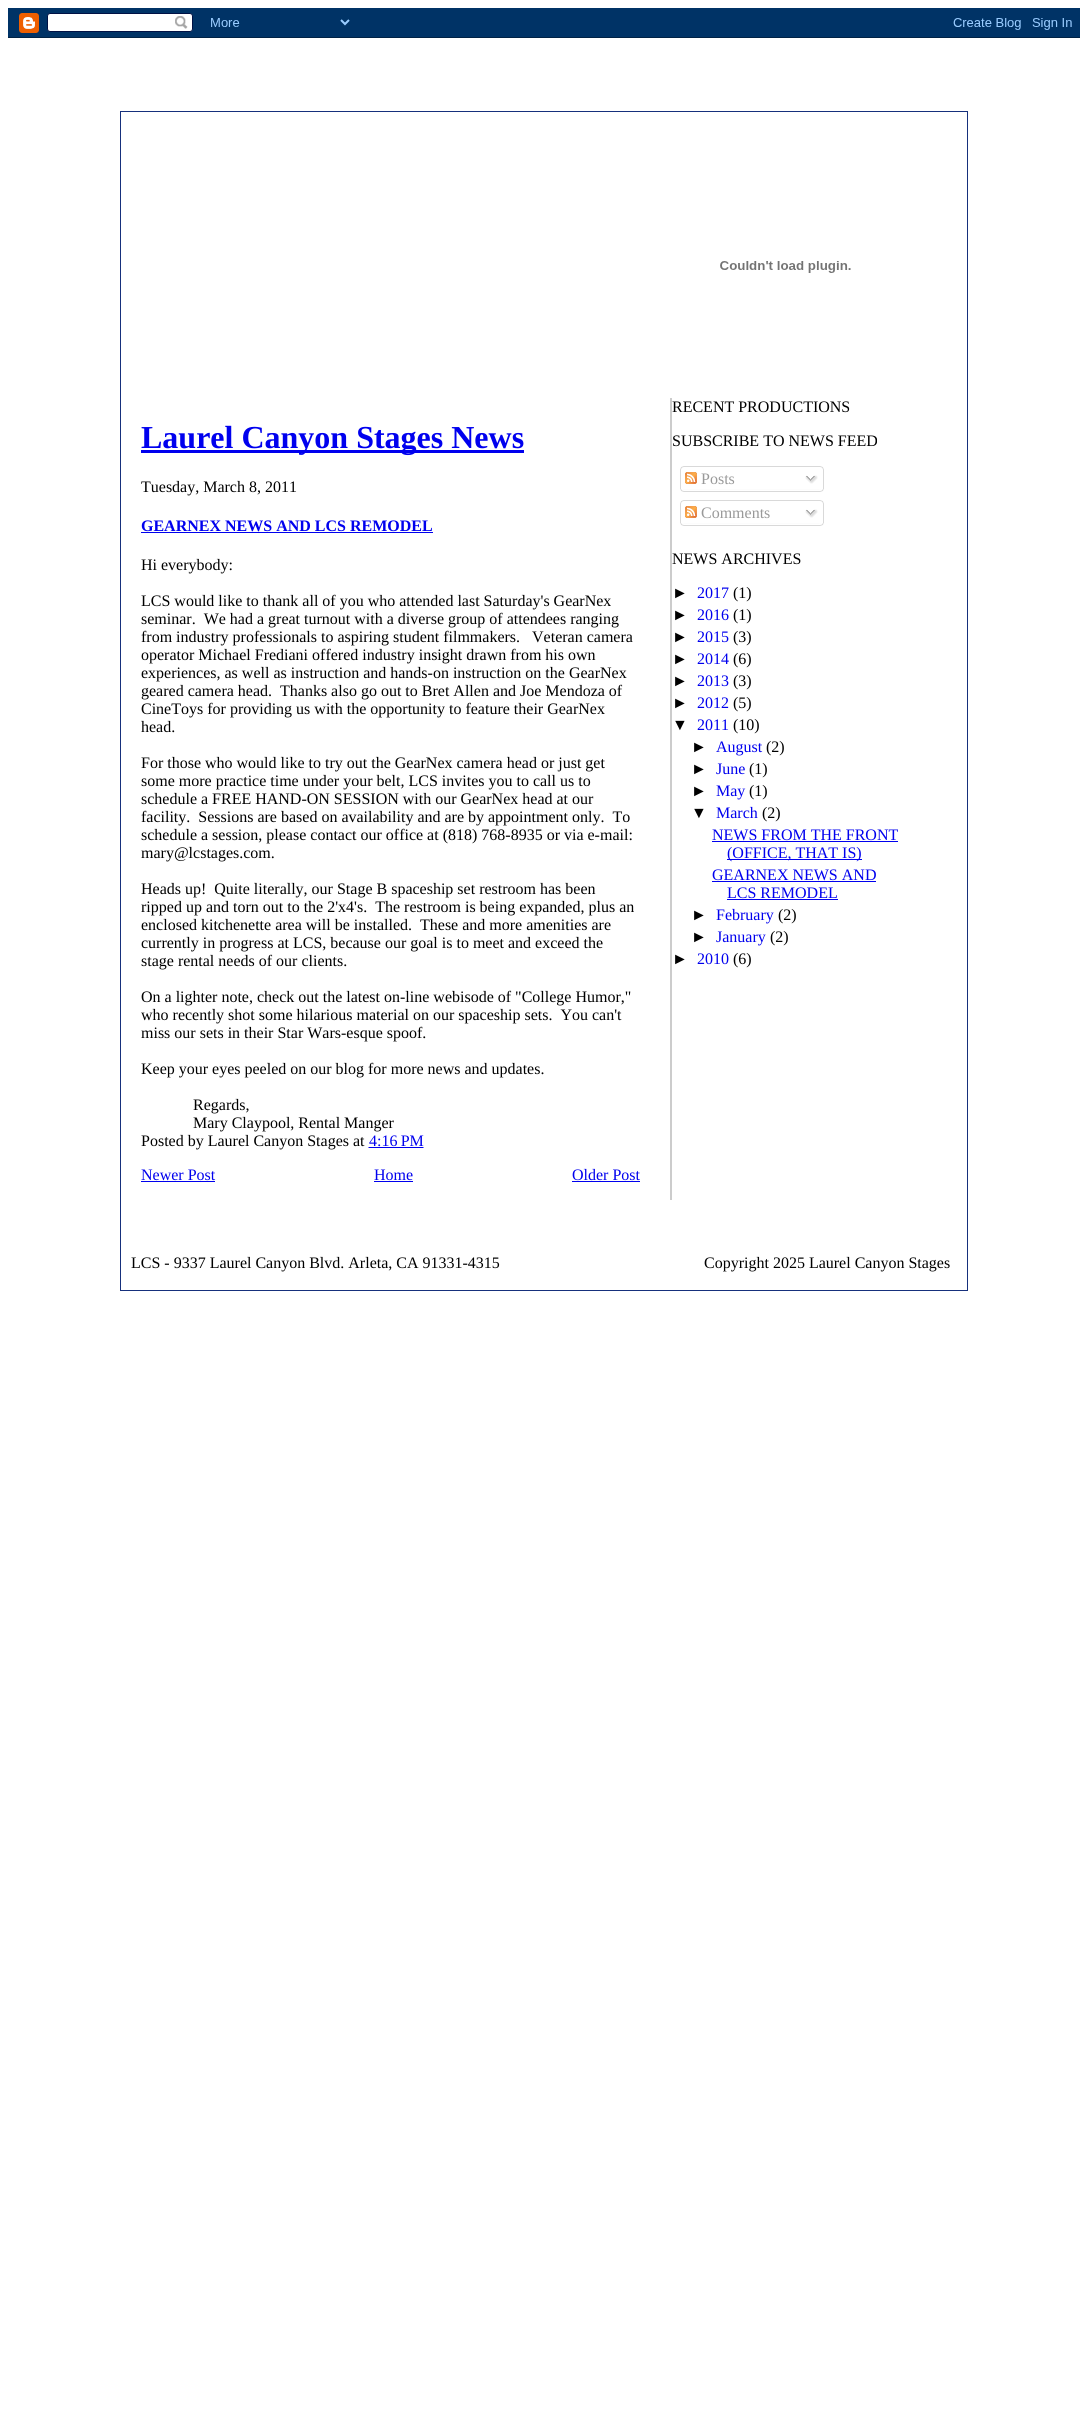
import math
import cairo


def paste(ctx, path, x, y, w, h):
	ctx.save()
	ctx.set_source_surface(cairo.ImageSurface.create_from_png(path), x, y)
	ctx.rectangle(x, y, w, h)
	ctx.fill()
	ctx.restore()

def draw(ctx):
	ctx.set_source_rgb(1, 1, 1)
	ctx.paint()
	paste(ctx, 'media/1.png', 8, 8, 1072, 30)
	ctx.set_source_rgb(0.086, 0.188, 0.486)
	ctx.rectangle(120, 111, 848, 1180)
	ctx.fill()
	ctx.set_source_rgb(1, 1, 1)
	ctx.rectangle(121, 112, 846, 1178)
	ctx.fill()
	paste(ctx, 'media/2.png', 720, 261, 131, 12)
	ctx.set_source_rgb(0, 0, 0.933)
	ctx.rectangle(141, 450, 383, 3)
	ctx.fill()
	ctx.select_font_face('Liberation Serif', cairo.FONT_SLANT_NORMAL, cairo.FONT_WEIGHT_BOLD)
	ctx.set_font_size(32)
	ctx.move_to(141, 448)
	ctx.show_text('Laurel Canyon Stages News')
	ctx.select_font_face('Liberation Serif')
	ctx.set_font_size(16)
	ctx.set_source_rgb(0, 0, 0)
	ctx.move_to(141, 492)
	ctx.show_text('Tuesday, March 8, 2011')
	ctx.select_font_face('Liberation Serif', cairo.FONT_SLANT_NORMAL, cairo.FONT_WEIGHT_BOLD)
	ctx.set_source_rgb(0, 0, 0.933)
	ctx.move_to(141, 531)
	ctx.show_text('GEARNEX NEWS AND LCS REMODEL')
	ctx.rectangle(141, 532, 292, 1)
	ctx.fill()
	ctx.select_font_face('Liberation Serif')
	ctx.set_source_rgb(0, 0, 0)
	for x, y, s in [
		(141, 570, 'Hi everybody:'),
		(141, 606, 'LCS would like to thank all of you who attended last Saturday\'s GearNex'),
		(141, 624, 'seminar.  We had a great turnout with a diverse group of attendees ranging'),
		(141, 642, 'from industry professionals to aspiring student filmmakers.   Veteran camera'),
		(141, 660, 'operator Michael Frediani offered industry insight drawn from his own'),
		(141, 678, 'experiences, as well as instruction and hands-on instruction on the GearNex'),
		(141, 696, 'geared camera head.  Thanks also go out to Bret Allen and Joe Mendoza of'),
		(141, 714, 'CineToys for providing us with the opportunity to feature their GearNex'),
		(141, 732, 'head.'),
		(141, 768, 'For those who would like to try out the GearNex camera head or just get'),
		(141, 786, 'some more practice time under your belt, LCS invites you to call us to'),
		(141, 804, 'schedule a FREE HAND-ON SESSION with our GearNex head at our'),
		(141, 822, 'facility.  Sessions are based on availability and are by appointment only.  To'),
		(141, 840, 'schedule a session, please contact our office at (818) 768-8935 or via e-mail:'),
		(141, 858, 'mary@lcstages.com.'),
		(141, 894, 'Heads up!  Quite literally, our Stage B spaceship set restroom has been'),
		(141, 912, 'ripped up and torn out to the 2\'x4\'s.  The restroom is being expanded, plus an'),
		(141, 930, 'enclosed kitchenette area will be installed.  These and more amenities are'),
		(141, 948, 'currently in progress at LCS, because our goal is to meet and exceed the'),
		(141, 966, 'stage rental needs of our clients.'),
		(141, 1002, 'On a lighter note, check out the latest on-line webisode of "College Humor,"'),
		(141, 1020, 'who recently shot some hilarious material on our spaceship sets.  You can\'t'),
		(141, 1038, 'miss our sets in their Star Wars-esque spoof.'),
		(141, 1074, 'Keep your eyes peeled on our blog for more news and updates.'),
		(193, 1110, 'Regards,'),
		(193, 1128, 'Mary Claypool, Rental Manger'),
		(141, 1146, 'Posted by Laurel Canyon Stages at'),
	]:
		ctx.move_to(x, y)
		ctx.show_text(s)
	ctx.set_source_rgb(0, 0, 0.933)
	ctx.move_to(369, 1146)
	ctx.show_text('4:16 PM')
	ctx.new_path()
	ctx.move_to(368.5, 1147.5)
	ctx.line_to(423.5, 1147.5)
	ctx.set_line_width(1)
	ctx.set_dash([1, 1])
	ctx.stroke()
	ctx.rectangle(369, 1147, 54, 1)
	ctx.fill()
	ctx.move_to(141, 1180)
	ctx.show_text('Newer Post')
	ctx.rectangle(141, 1181, 74, 1)
	ctx.fill()
	ctx.move_to(374, 1180)
	ctx.show_text('Home')
	ctx.rectangle(374, 1181, 39, 1)
	ctx.fill()
	ctx.move_to(572, 1180)
	ctx.show_text('Older Post')
	ctx.rectangle(572, 1181, 68, 1)
	ctx.fill()
	ctx.set_source_rgb(0.8, 0.8, 0.8)
	ctx.rectangle(670, 398, 2, 802)
	ctx.fill()
	ctx.set_source_rgb(0, 0, 0)
	ctx.move_to(672, 412)
	ctx.show_text('RECENT PRODUCTIONS')
	ctx.move_to(672, 446)
	ctx.show_text('SUBSCRIBE TO NEWS FEED')
	paste(ctx, 'media/3.png', 680, 466, 144, 23)
	paste(ctx, 'media/4.png', 685, 472, 12, 12)
	ctx.set_source_rgb(0.6, 0.6, 0.6)
	ctx.move_to(701, 484)
	ctx.show_text('Posts')
	paste(ctx, 'media/5.png', 805, 475, 13, 9)
	paste(ctx, 'media/6.png', 680, 489, 144, 3)
	paste(ctx, 'media/3.png', 680, 500, 144, 23)
	paste(ctx, 'media/4.png', 685, 506, 12, 12)
	ctx.move_to(701, 518)
	ctx.show_text('Comments')
	paste(ctx, 'media/5.png', 805, 509, 13, 9)
	paste(ctx, 'media/6.png', 680, 523, 144, 3)
	ctx.set_source_rgb(0, 0, 0)
	ctx.move_to(672, 564)
	ctx.show_text('NEWS ARCHIVES')
	ctx.select_font_face('Liberation Sans')
	ctx.move_to(672, 598)
	ctx.show_text('►')
	ctx.select_font_face('Liberation Serif')
	ctx.set_source_rgb(0, 0, 0.933)
	ctx.move_to(697, 598)
	ctx.show_text('2017')
	ctx.set_source_rgb(0, 0, 0)
	ctx.move_to(733, 598)
	ctx.show_text('(1)')
	ctx.select_font_face('Liberation Sans')
	ctx.move_to(672, 620)
	ctx.show_text('►')
	ctx.select_font_face('Liberation Serif')
	ctx.set_source_rgb(0, 0, 0.933)
	ctx.move_to(697, 620)
	ctx.show_text('2016')
	ctx.set_source_rgb(0, 0, 0)
	ctx.move_to(733, 620)
	ctx.show_text('(1)')
	ctx.select_font_face('Liberation Sans')
	ctx.move_to(672, 642)
	ctx.show_text('►')
	ctx.select_font_face('Liberation Serif')
	ctx.set_source_rgb(0, 0, 0.933)
	ctx.move_to(697, 642)
	ctx.show_text('2015')
	ctx.set_source_rgb(0, 0, 0)
	ctx.move_to(733, 642)
	ctx.show_text('(3)')
	ctx.select_font_face('Liberation Sans')
	ctx.move_to(672, 664)
	ctx.show_text('►')
	ctx.select_font_face('Liberation Serif')
	ctx.set_source_rgb(0, 0, 0.933)
	ctx.move_to(697, 664)
	ctx.show_text('2014')
	ctx.set_source_rgb(0, 0, 0)
	ctx.move_to(733, 664)
	ctx.show_text('(6)')
	ctx.select_font_face('Liberation Sans')
	ctx.move_to(672, 686)
	ctx.show_text('►')
	ctx.select_font_face('Liberation Serif')
	ctx.set_source_rgb(0, 0, 0.933)
	ctx.move_to(697, 686)
	ctx.show_text('2013')
	ctx.set_source_rgb(0, 0, 0)
	ctx.move_to(733, 686)
	ctx.show_text('(3)')
	ctx.select_font_face('Liberation Sans')
	ctx.move_to(672, 708)
	ctx.show_text('►')
	ctx.select_font_face('Liberation Serif')
	ctx.set_source_rgb(0, 0, 0.933)
	ctx.move_to(697, 708)
	ctx.show_text('2012')
	ctx.set_source_rgb(0, 0, 0)
	ctx.move_to(733, 708)
	ctx.show_text('(5)')
	ctx.select_font_face('Liberation Sans')
	ctx.move_to(672, 730)
	ctx.show_text('▼')
	ctx.select_font_face('Liberation Serif')
	ctx.set_source_rgb(0, 0, 0.933)
	ctx.move_to(697, 730)
	ctx.show_text('2011')
	ctx.set_source_rgb(0, 0, 0)
	ctx.move_to(733, 730)
	ctx.show_text('(10)')
	ctx.select_font_face('Liberation Sans')
	ctx.move_to(691, 752)
	ctx.show_text('►')
	ctx.select_font_face('Liberation Serif')
	ctx.set_source_rgb(0, 0, 0.933)
	ctx.move_to(716, 752)
	ctx.show_text('August')
	ctx.set_source_rgb(0, 0, 0)
	ctx.move_to(766, 752)
	ctx.show_text('(2)')
	ctx.select_font_face('Liberation Sans')
	ctx.move_to(691, 774)
	ctx.show_text('►')
	ctx.select_font_face('Liberation Serif')
	ctx.set_source_rgb(0, 0, 0.933)
	ctx.move_to(716, 774)
	ctx.show_text('June')
	ctx.set_source_rgb(0, 0, 0)
	ctx.move_to(749, 774)
	ctx.show_text('(1)')
	ctx.select_font_face('Liberation Sans')
	ctx.move_to(691, 796)
	ctx.show_text('►')
	ctx.select_font_face('Liberation Serif')
	ctx.set_source_rgb(0, 0, 0.933)
	ctx.move_to(716, 796)
	ctx.show_text('May')
	ctx.set_source_rgb(0, 0, 0)
	ctx.move_to(749, 796)
	ctx.show_text('(1)')
	ctx.select_font_face('Liberation Sans')
	ctx.move_to(691, 818)
	ctx.show_text('▼')
	ctx.select_font_face('Liberation Serif')
	ctx.set_source_rgb(0, 0, 0.933)
	ctx.move_to(716, 818)
	ctx.show_text('March')
	ctx.set_source_rgb(0, 0, 0)
	ctx.move_to(762, 818)
	ctx.show_text('(2)')
	ctx.set_source_rgb(0, 0, 0.933)
	ctx.move_to(712, 840)
	ctx.show_text('NEWS FROM THE FRONT')
	ctx.rectangle(712, 841, 186, 1)
	ctx.fill()
	ctx.rectangle(727, 859, 135, 1)
	ctx.fill()
	ctx.move_to(727, 858)
	ctx.show_text('(OFFICE, THAT IS)')
	ctx.move_to(712, 880)
	ctx.show_text('GEARNEX NEWS AND')
	ctx.rectangle(712, 881, 164, 1)
	ctx.fill()
	ctx.move_to(727, 898)
	ctx.show_text('LCS REMODEL')
	ctx.rectangle(727, 899, 111, 1)
	ctx.fill()
	ctx.select_font_face('Liberation Sans')
	ctx.set_source_rgb(0, 0, 0)
	ctx.move_to(691, 920)
	ctx.show_text('►')
	ctx.select_font_face('Liberation Serif')
	ctx.set_source_rgb(0, 0, 0.933)
	ctx.move_to(716, 920)
	ctx.show_text('February')
	ctx.set_source_rgb(0, 0, 0)
	ctx.move_to(778, 920)
	ctx.show_text('(2)')
	ctx.select_font_face('Liberation Sans')
	ctx.move_to(691, 942)
	ctx.show_text('►')
	ctx.select_font_face('Liberation Serif')
	ctx.set_source_rgb(0, 0, 0.933)
	ctx.move_to(716, 942)
	ctx.show_text('January')
	ctx.set_source_rgb(0, 0, 0)
	ctx.move_to(770, 942)
	ctx.show_text('(2)')
	ctx.select_font_face('Liberation Sans')
	ctx.move_to(672, 964)
	ctx.show_text('►')
	ctx.select_font_face('Liberation Serif')
	ctx.set_source_rgb(0, 0, 0.933)
	ctx.move_to(697, 964)
	ctx.show_text('2010')
	ctx.set_source_rgb(0, 0, 0)
	for x, y, s in [
		(733, 964, '(6)'),
		(131, 1268, 'LCS - 9337 Laurel Canyon Blvd. Arleta, CA 91331-4315'),
		(704, 1268, 'Copyright 2025 Laurel Canyon Stages'),
	]:
		ctx.move_to(x, y)
		ctx.show_text(s)


surface = cairo.ImageSurface(cairo.FORMAT_RGB24, 1088, 2424)
ctx = cairo.Context(surface)
options = cairo.FontOptions()
options.set_hint_metrics(cairo.HINT_METRICS_OFF)
options.set_hint_style(cairo.HINT_STYLE_NONE)
ctx.set_font_options(options)
ctx.set_miter_limit(4)
draw(ctx)
surface.write_to_png('image.png')
